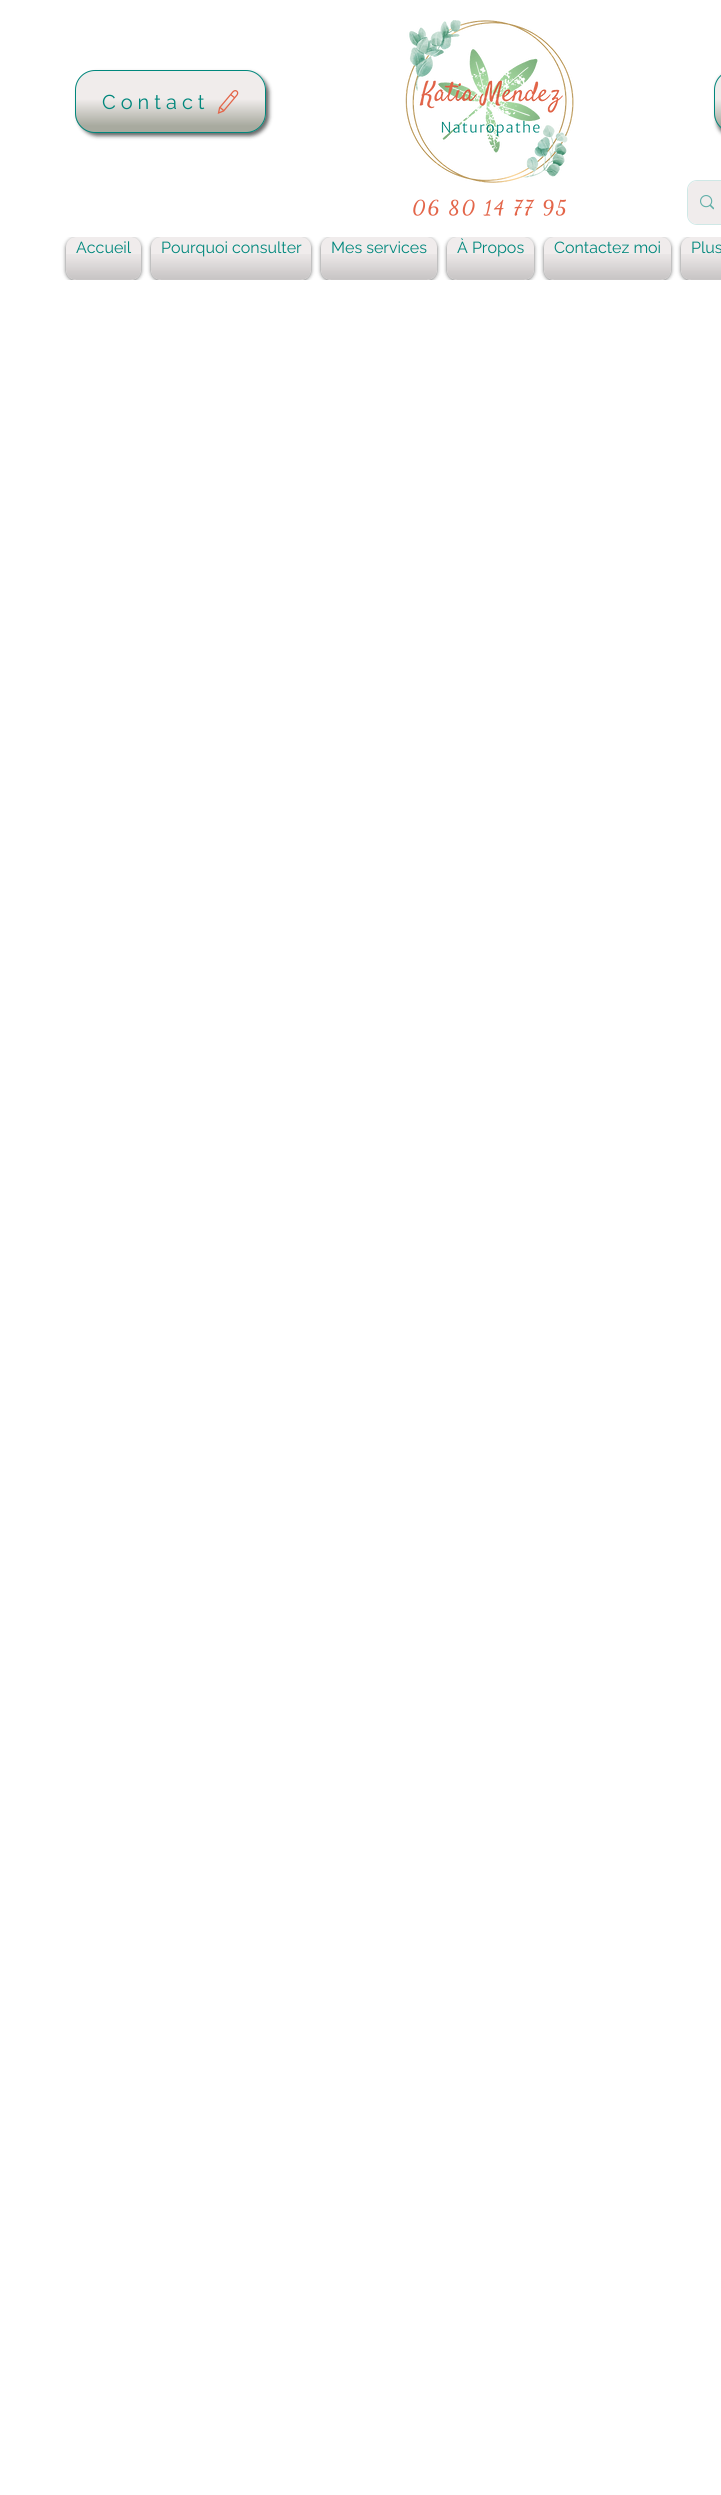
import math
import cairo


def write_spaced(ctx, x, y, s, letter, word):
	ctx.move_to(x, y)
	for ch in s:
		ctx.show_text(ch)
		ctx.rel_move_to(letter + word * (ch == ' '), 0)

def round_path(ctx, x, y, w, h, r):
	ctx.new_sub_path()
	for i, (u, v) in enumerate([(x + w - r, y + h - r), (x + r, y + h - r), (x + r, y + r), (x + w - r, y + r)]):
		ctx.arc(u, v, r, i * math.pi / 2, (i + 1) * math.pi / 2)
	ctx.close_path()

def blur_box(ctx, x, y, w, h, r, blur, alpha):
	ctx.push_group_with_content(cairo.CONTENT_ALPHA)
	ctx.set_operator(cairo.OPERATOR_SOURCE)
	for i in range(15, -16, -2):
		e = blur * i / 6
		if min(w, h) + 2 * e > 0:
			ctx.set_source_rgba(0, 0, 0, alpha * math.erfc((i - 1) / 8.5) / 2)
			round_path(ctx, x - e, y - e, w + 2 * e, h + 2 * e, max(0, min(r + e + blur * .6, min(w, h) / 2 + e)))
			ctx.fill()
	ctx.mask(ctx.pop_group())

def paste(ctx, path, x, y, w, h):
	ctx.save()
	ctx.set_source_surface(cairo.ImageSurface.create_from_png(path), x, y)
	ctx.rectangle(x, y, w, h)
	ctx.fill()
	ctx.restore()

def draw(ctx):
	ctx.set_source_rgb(1, 1, 1)
	ctx.paint()
	ctx.set_source_rgb(0, 0, 0)
	blur_box(ctx, 78, 73, 191, 63, 20, 2, 0.6)
	ctx.save()
	round_path(ctx, 75, 70, 191, 63, 20)
	ctx.clip()
	gradient = cairo.LinearGradient(171, 71, 171, 132)
	gradient.add_color_stop_rgba(0.19, 0.941, 0.925, 0.922, 1)
	gradient.add_color_stop_rgba(0.46, 0.941, 0.925, 0.922, 1)
	gradient.add_color_stop_rgba(0.9, 0.659, 0.667, 0.624, 1)
	ctx.set_source(gradient)
	ctx.rectangle(75, 71, 191, 61)
	ctx.fill()
	ctx.restore()
	round_path(ctx, 75.5, 70.5, 190, 62, 19.5)
	ctx.set_source_rgb(0, 0.529, 0.486)
	ctx.set_line_width(1)
	ctx.stroke()
	ctx.select_font_face('Raleway')
	ctx.set_font_size(20)
	write_spaced(ctx, 102, 109, 'Contact', 5, 0)
	paste(ctx, 'media/1.png', 217, 90, 22, 24)
	paste(ctx, 'media/2.png', 405, 20, 169, 163)
	ctx.set_source_rgb(0, 0, 0)
	blur_box(ctx, 717, 73, 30, 63, 20, 2, 0.6)
	ctx.save()
	round_path(ctx, 714, 70, 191, 63, 20)
	ctx.clip()
	gradient = cairo.LinearGradient(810, 71, 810, 132)
	gradient.add_color_stop_rgba(0.19, 0.941, 0.925, 0.922, 1)
	gradient.add_color_stop_rgba(0.46, 0.941, 0.925, 0.922, 1)
	gradient.add_color_stop_rgba(0.9, 0.659, 0.667, 0.624, 1)
	ctx.set_source(gradient)
	ctx.rectangle(714, 71, 7, 61)
	ctx.fill()
	ctx.restore()
	round_path(ctx, 714.5, 70.5, 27, 62, 19.5)
	ctx.set_source_rgb(0, 0.529, 0.486)
	ctx.stroke()
	ctx.select_font_face('Dancing Script', cairo.FONT_SLANT_NORMAL, cairo.FONT_WEIGHT_BOLD)
	ctx.set_source_rgb(0.89, 0.396, 0.286)
	write_spaced(ctx, 412, 214, '06 80 14 77 95', 2, 0)
	round_path(ctx, 687.5, 180.5, 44, 44, 9.5)
	ctx.set_source_rgb(0.812, 0.91, 0.902)
	ctx.stroke()
	ctx.set_source_rgb(0.941, 0.925, 0.922)
	round_path(ctx, 688, 181, 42, 43, 9)
	ctx.fill()
	paste(ctx, 'media/3.png', 700, 195, 14, 15)
	ctx.save()
	ctx.rectangle(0, 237, 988, 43)
	ctx.clip()
	ctx.set_source_rgb(0, 0, 0)
	blur_box(ctx, 66, 238, 75, 43, 10, 2, 0.6)
	ctx.restore()
	round_path(ctx, 66, 237, 75, 43, 10)
	ctx.fill()
	paste(ctx, 'media/4.png', 66, 254, 75, 26)
	ctx.select_font_face('Raleway')
	ctx.set_font_size(16)
	ctx.set_source_rgb(0, 0.529, 0.486)
	ctx.move_to(76, 253)
	ctx.show_text('Accueil')
	ctx.save()
	ctx.rectangle(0, 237, 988, 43)
	ctx.clip()
	ctx.set_source_rgb(0, 0, 0)
	blur_box(ctx, 151, 238, 160, 43, 10, 2, 0.6)
	ctx.restore()
	ctx.set_source_rgb(0.941, 0.925, 0.922)
	round_path(ctx, 151, 237, 160, 43, 10)
	ctx.fill()
	paste(ctx, 'media/5.png', 151, 254, 160, 26)
	ctx.set_source_rgb(0, 0.529, 0.486)
	ctx.move_to(161, 253)
	ctx.show_text('Pourquoi consulter')
	ctx.save()
	ctx.rectangle(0, 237, 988, 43)
	ctx.clip()
	ctx.set_source_rgb(0, 0, 0)
	blur_box(ctx, 321, 238, 116, 43, 10, 2, 0.6)
	ctx.restore()
	ctx.set_source_rgb(0.941, 0.925, 0.922)
	round_path(ctx, 321, 237, 116, 43, 10)
	ctx.fill()
	paste(ctx, 'media/6.png', 321, 254, 116, 26)
	ctx.set_source_rgb(0, 0.529, 0.486)
	ctx.move_to(331, 253)
	ctx.show_text('Mes services')
	ctx.save()
	ctx.rectangle(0, 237, 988, 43)
	ctx.clip()
	ctx.set_source_rgb(0, 0, 0)
	blur_box(ctx, 447, 238, 87, 43, 10, 2, 0.6)
	ctx.restore()
	ctx.set_source_rgb(0.941, 0.925, 0.922)
	round_path(ctx, 447, 237, 87, 43, 10)
	ctx.fill()
	paste(ctx, 'media/7.png', 447, 254, 87, 26)
	ctx.set_source_rgb(0, 0.529, 0.486)
	ctx.move_to(457, 253)
	ctx.show_text('À Propos')
	ctx.save()
	ctx.rectangle(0, 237, 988, 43)
	ctx.clip()
	ctx.set_source_rgb(0, 0, 0)
	blur_box(ctx, 544, 238, 127, 43, 10, 2, 0.6)
	ctx.restore()
	ctx.set_source_rgb(0.941, 0.925, 0.922)
	round_path(ctx, 544, 237, 127, 43, 10)
	ctx.fill()
	paste(ctx, 'media/8.png', 544, 254, 127, 26)
	ctx.set_source_rgb(0, 0.529, 0.486)
	ctx.move_to(554, 253)
	ctx.show_text('Contactez moi')
	ctx.save()
	ctx.rectangle(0, 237, 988, 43)
	ctx.clip()
	ctx.set_source_rgb(0, 0, 0)
	blur_box(ctx, 681, 238, 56, 43, 10, 2, 0.6)
	ctx.restore()
	ctx.set_source_rgb(0.941, 0.925, 0.922)
	round_path(ctx, 681, 237, 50, 43, 10)
	ctx.fill()
	paste(ctx, 'media/9.png', 681, 254, 40, 26)
	ctx.set_source_rgb(0, 0.529, 0.486)
	ctx.move_to(691, 253)
	ctx.show_text('Plus')


surface = cairo.ImageSurface(cairo.FORMAT_RGB24, 721, 2495)
ctx = cairo.Context(surface)
options = cairo.FontOptions()
options.set_hint_metrics(cairo.HINT_METRICS_OFF)
options.set_hint_style(cairo.HINT_STYLE_NONE)
ctx.set_font_options(options)
ctx.set_miter_limit(4)
draw(ctx)
surface.write_to_png('image.png')
